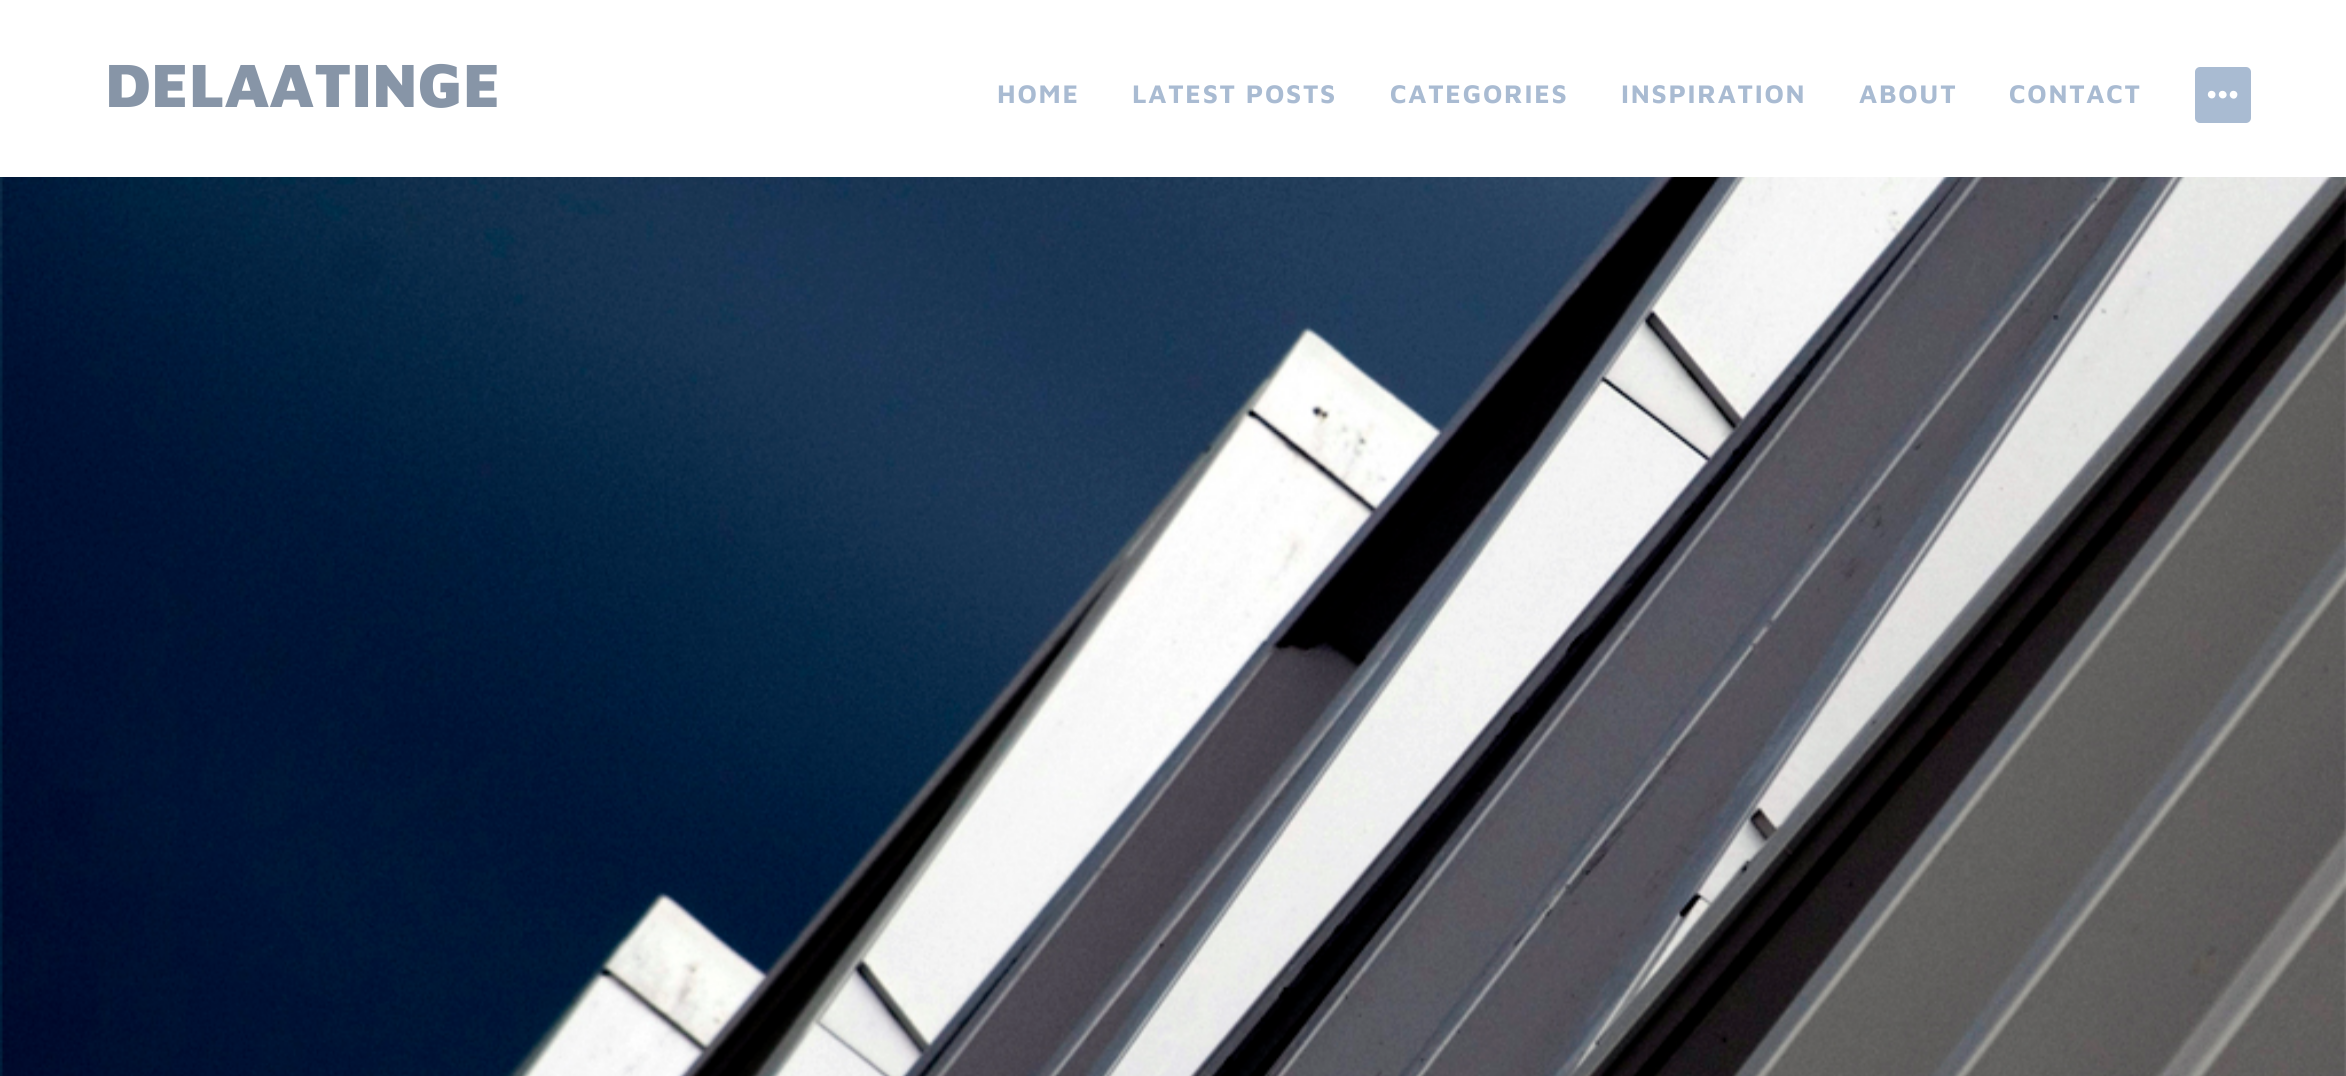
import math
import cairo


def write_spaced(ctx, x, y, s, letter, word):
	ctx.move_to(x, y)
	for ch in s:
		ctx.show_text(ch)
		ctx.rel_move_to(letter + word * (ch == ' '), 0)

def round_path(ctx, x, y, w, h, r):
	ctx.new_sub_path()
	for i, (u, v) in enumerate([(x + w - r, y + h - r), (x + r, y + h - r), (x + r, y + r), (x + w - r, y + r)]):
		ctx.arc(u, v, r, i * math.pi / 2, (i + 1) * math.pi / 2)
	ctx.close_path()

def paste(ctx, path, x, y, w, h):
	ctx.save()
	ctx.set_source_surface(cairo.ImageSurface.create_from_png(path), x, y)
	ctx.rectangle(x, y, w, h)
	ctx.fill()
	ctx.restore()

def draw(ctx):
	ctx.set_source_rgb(1, 1, 1)
	ctx.paint()
	ctx.select_font_face('Maven Pro Black')
	ctx.set_font_size(63)
	ctx.set_source_rgb(0.529, 0.584, 0.655)
	ctx.move_to(105, 107)
	ctx.show_text('DELAATINGE')
	ctx.select_font_face('Maven Pro', cairo.FONT_SLANT_NORMAL, cairo.FONT_WEIGHT_BOLD)
	ctx.set_font_size(26.25)
	ctx.set_source_rgb(0.663, 0.733, 0.824)
	for x, y, s in [
		(997, 103, 'HOME'),
		(1132, 103, 'LATEST POSTS'),
		(1390, 103, 'CATEGORIES'),
		(1621, 103, 'INSPIRATION'),
		(1859, 103, 'ABOUT'),
		(2009, 103, 'CONTACT'),
	]:
		write_spaced(ctx, x, y, s, 1.75, 0)
	round_path(ctx, 2195, 67, 56, 56, 5)
	ctx.fill()
	paste(ctx, 'media/1.png', 2207, 90, 31, 9)
	paste(ctx, 'media/2.png', 0, 177, 2346, 899)


surface = cairo.ImageSurface(cairo.FORMAT_RGB24, 2346, 1076)
ctx = cairo.Context(surface)
options = cairo.FontOptions()
options.set_hint_metrics(cairo.HINT_METRICS_OFF)
options.set_hint_style(cairo.HINT_STYLE_NONE)
ctx.set_font_options(options)
ctx.set_miter_limit(4)
draw(ctx)
surface.write_to_png('image.png')
